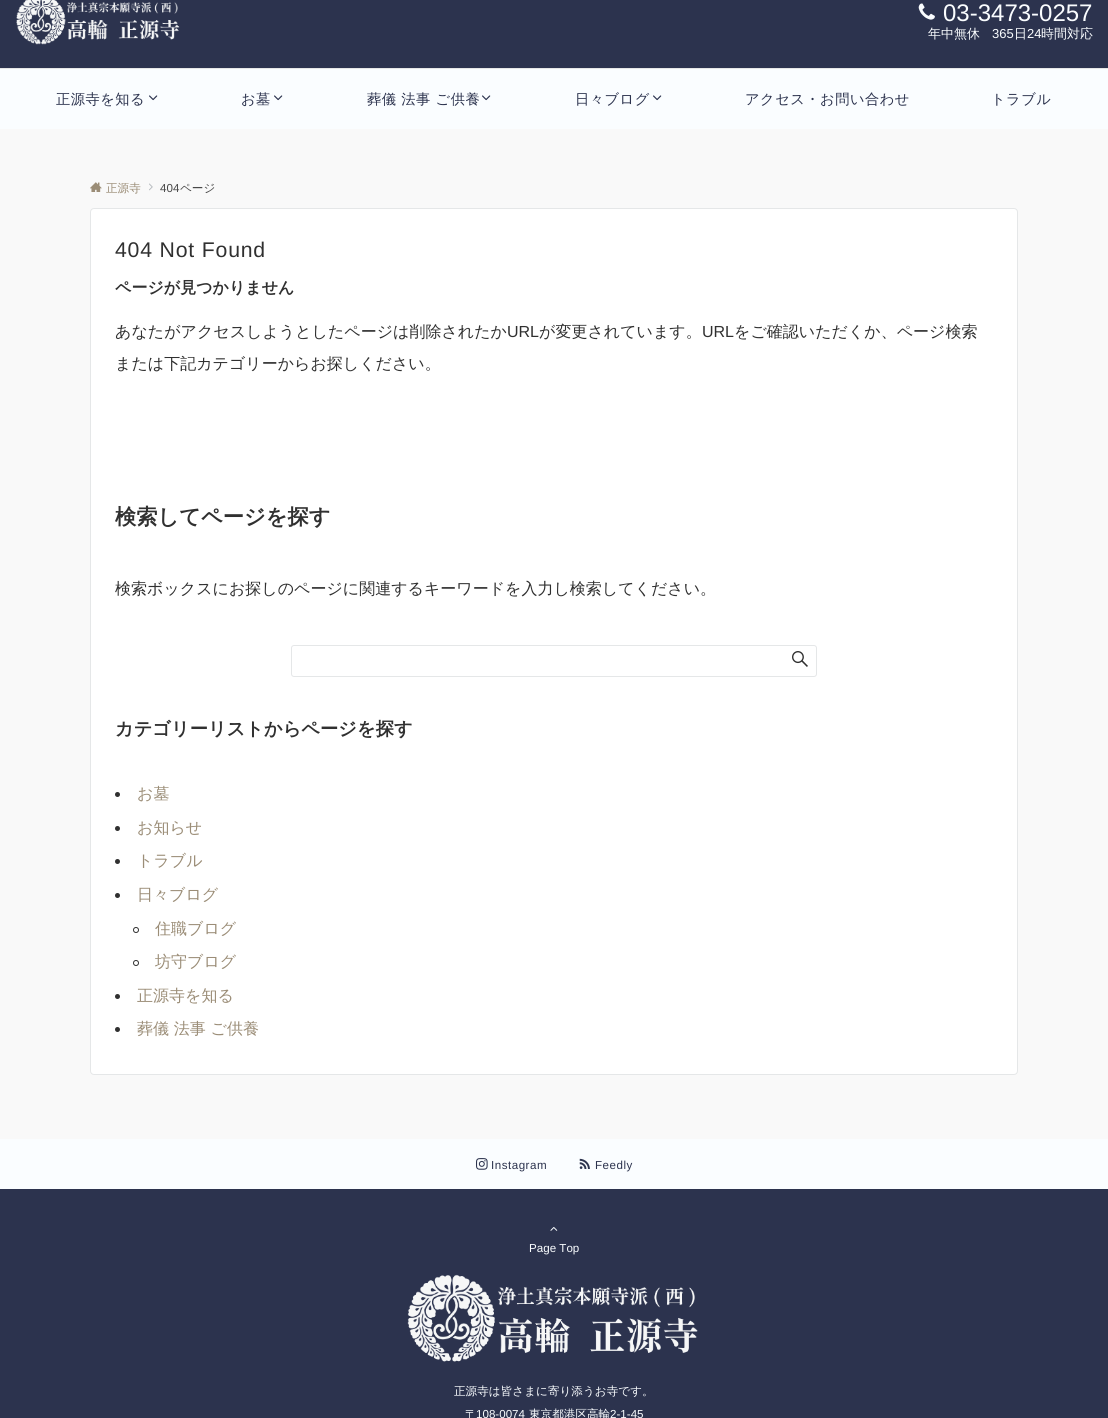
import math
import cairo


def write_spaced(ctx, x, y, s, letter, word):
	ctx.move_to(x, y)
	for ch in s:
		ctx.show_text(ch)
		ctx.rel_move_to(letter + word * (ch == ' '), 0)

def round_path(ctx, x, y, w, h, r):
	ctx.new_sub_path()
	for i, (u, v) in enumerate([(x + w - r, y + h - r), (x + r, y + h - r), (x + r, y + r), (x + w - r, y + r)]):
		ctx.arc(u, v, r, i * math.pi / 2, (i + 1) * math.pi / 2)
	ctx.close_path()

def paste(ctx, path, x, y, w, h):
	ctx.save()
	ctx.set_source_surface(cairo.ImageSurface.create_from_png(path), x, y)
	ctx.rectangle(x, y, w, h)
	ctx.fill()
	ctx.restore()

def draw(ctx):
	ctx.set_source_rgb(0.973, 0.973, 0.973)
	ctx.paint()
	ctx.set_source_rgb(0.173, 0.2, 0.306)
	ctx.rectangle(0, 0, 1108, 68)
	ctx.fill()
	ctx.set_source_rgb(0.902, 0.902, 0.902)
	ctx.rectangle(0, 68, 1108, 1)
	ctx.fill()
	paste(ctx, 'media/1.png', 16, 0, 164, 45)
	paste(ctx, 'media/2.png', 918, 3, 17, 17)
	ctx.select_font_face('Liberation Sans')
	ctx.set_font_size(24)
	ctx.set_source_rgb(0.98, 0.992, 1)
	ctx.move_to(943, 21)
	ctx.show_text('03-3473-0257')
	ctx.select_font_face('WenQuanYi Zen Hei Medium')
	ctx.set_font_size(13)
	ctx.move_to(928, 38)
	ctx.show_text('年中無休')
	ctx.select_font_face('Liberation Sans')
	ctx.move_to(992, 38)
	ctx.show_text('365')
	ctx.select_font_face('WenQuanYi Zen Hei Medium')
	ctx.move_to(1014, 38)
	ctx.show_text('日')
	ctx.select_font_face('Liberation Sans')
	ctx.move_to(1027, 38)
	ctx.show_text('24')
	ctx.select_font_face('WenQuanYi Zen Hei Medium')
	ctx.move_to(1041, 38)
	ctx.show_text('時間対応')
	ctx.rectangle(0, 69, 1108, 60)
	ctx.fill()
	ctx.set_font_size(14.25)
	ctx.set_source_rgb(0.173, 0.2, 0.306)
	write_spaced(ctx, 56, 104, '正源寺を知る', 0.5, 0)
	paste(ctx, 'media/3.png', 149, 95, 9, 6)
	write_spaced(ctx, 241, 104, 'お墓', 0.5, 0)
	paste(ctx, 'media/3.png', 274, 95, 9, 6)
	write_spaced(ctx, 367, 104, '葬儀 法事 ご供養', 0.5, 0)
	paste(ctx, 'media/3.png', 482, 95, 9, 6)
	write_spaced(ctx, 575, 104, '日々ブログ', 0.5, 0)
	paste(ctx, 'media/3.png', 653, 95, 9, 6)
	write_spaced(ctx, 745, 104, 'アクセス・お問い合わせ', 0.5, 0)
	write_spaced(ctx, 991, 104, 'トラブル', 0.5, 0)
	paste(ctx, 'media/4.png', 90, 182, 12, 10)
	ctx.set_font_size(11.6)
	ctx.set_source_rgb(0.608, 0.553, 0.467)
	ctx.move_to(106, 192)
	ctx.show_text('正源寺')
	paste(ctx, 'media/5.png', 149, 183, 4, 8)
	ctx.select_font_face('Liberation Sans')
	ctx.set_source_rgb(0.282, 0.282, 0.282)
	ctx.move_to(160, 192)
	ctx.show_text('404')
	ctx.select_font_face('WenQuanYi Zen Hei Medium')
	ctx.move_to(180, 192)
	ctx.show_text('ページ')
	ctx.set_source_rgb(1, 1, 1)
	round_path(ctx, 90.5, 208.5, 927, 866, 3.5)
	ctx.fill_preserve()
	ctx.set_source_rgb(0.898, 0.906, 0.91)
	ctx.set_line_width(1)
	ctx.stroke()
	ctx.select_font_face('Liberation Sans')
	ctx.set_font_size(21.25)
	ctx.set_source_rgb(0.188, 0.188, 0.188)
	write_spaced(ctx, 115, 257, '404 Not Found', 0.8, 0)
	ctx.select_font_face('WenQuanYi Zen Hei', cairo.FONT_SLANT_NORMAL, cairo.FONT_WEIGHT_BOLD)
	ctx.set_font_size(16)
	ctx.move_to(115, 293)
	ctx.show_text('ページが見つかりません')
	ctx.select_font_face('WenQuanYi Zen Hei Medium')
	ctx.move_to(115, 337)
	ctx.show_text('あなたがアクセスしようとしたページは削除されたか')
	ctx.select_font_face('Liberation Sans')
	ctx.move_to(507, 337)
	ctx.show_text('URL')
	ctx.select_font_face('WenQuanYi Zen Hei Medium')
	ctx.move_to(539, 337)
	ctx.show_text('が変更されています。')
	ctx.select_font_face('Liberation Sans')
	ctx.move_to(702, 337)
	ctx.show_text('URL')
	ctx.select_font_face('WenQuanYi Zen Hei Medium')
	ctx.move_to(734, 337)
	ctx.show_text('をご確認いただくか、ページ検索')
	ctx.move_to(115, 369)
	ctx.show_text('または下記カテゴリーからお探しください。')
	ctx.select_font_face('WenQuanYi Zen Hei', cairo.FONT_SLANT_NORMAL, cairo.FONT_WEIGHT_BOLD)
	ctx.set_font_size(21.25)
	ctx.move_to(115, 524)
	ctx.show_text('検索してページを探す')
	ctx.select_font_face('WenQuanYi Zen Hei Medium')
	ctx.set_font_size(16)
	ctx.move_to(115, 594)
	ctx.show_text('検索ボックスにお探しのページに関連するキーワードを入力し検索してください。')
	round_path(ctx, 291.5, 645.5, 525, 31, 2.5)
	ctx.set_source_rgb(0.898, 0.906, 0.91)
	ctx.stroke()
	paste(ctx, 'media/6.png', 792, 651, 16, 16)
	ctx.select_font_face('WenQuanYi Zen Hei', cairo.FONT_SLANT_NORMAL, cairo.FONT_WEIGHT_BOLD)
	ctx.set_font_size(18.25)
	ctx.set_source_rgb(0.188, 0.188, 0.188)
	ctx.move_to(115, 735)
	ctx.show_text('カテゴリーリストからページを探す')
	ctx.new_path()
	ctx.arc(117.5, 794.5, 2.5, 0, 2 * math.pi)
	ctx.fill()
	ctx.select_font_face('WenQuanYi Zen Hei Medium')
	ctx.set_font_size(16)
	ctx.set_source_rgb(0.608, 0.553, 0.467)
	ctx.move_to(137, 799)
	ctx.show_text('お墓')
	ctx.set_source_rgb(0.188, 0.188, 0.188)
	ctx.new_path()
	ctx.arc(117.5, 828.5, 2.5, 0, 2 * math.pi)
	ctx.fill()
	ctx.set_source_rgb(0.608, 0.553, 0.467)
	ctx.move_to(137, 833)
	ctx.show_text('お知らせ')
	ctx.set_source_rgb(0.188, 0.188, 0.188)
	ctx.new_path()
	ctx.arc(117.5, 861.5, 2.5, 0, 2 * math.pi)
	ctx.fill()
	ctx.set_source_rgb(0.608, 0.553, 0.467)
	ctx.move_to(137, 866)
	ctx.show_text('トラブル')
	ctx.set_source_rgb(0.188, 0.188, 0.188)
	ctx.new_path()
	ctx.arc(117.5, 895.5, 2.5, 0, 2 * math.pi)
	ctx.fill()
	ctx.set_source_rgb(0.608, 0.553, 0.467)
	ctx.move_to(137, 900)
	ctx.show_text('日々ブログ')
	ctx.new_path()
	ctx.arc(136, 930, 2.5, 0, 2 * math.pi)
	ctx.set_source_rgb(0.188, 0.188, 0.188)
	ctx.stroke()
	ctx.set_source_rgb(0.608, 0.553, 0.467)
	ctx.move_to(155, 934)
	ctx.show_text('住職ブログ')
	ctx.new_path()
	ctx.arc(136, 963, 2.5, 0, 2 * math.pi)
	ctx.set_source_rgb(0.188, 0.188, 0.188)
	ctx.stroke()
	ctx.set_source_rgb(0.608, 0.553, 0.467)
	ctx.move_to(155, 967)
	ctx.show_text('坊守ブログ')
	ctx.set_source_rgb(0.188, 0.188, 0.188)
	ctx.new_path()
	ctx.arc(117.5, 996.5, 2.5, 0, 2 * math.pi)
	ctx.fill()
	ctx.set_source_rgb(0.608, 0.553, 0.467)
	ctx.move_to(137, 1001)
	ctx.show_text('正源寺を知る')
	ctx.set_source_rgb(0.188, 0.188, 0.188)
	ctx.new_path()
	ctx.arc(117.5, 1029.5, 2.5, 0, 2 * math.pi)
	ctx.fill()
	ctx.set_source_rgb(0.608, 0.553, 0.467)
	ctx.move_to(137, 1034)
	ctx.show_text('葬儀 法事 ご供養')
	ctx.set_source_rgb(0.173, 0.2, 0.306)
	ctx.rectangle(0, 1189, 1108, 229)
	ctx.fill()
	ctx.set_source_rgb(0.98, 0.992, 1)
	ctx.rectangle(0, 1139, 1108, 50)
	ctx.fill()
	paste(ctx, 'media/7.png', 476, 1158, 12, 12)
	ctx.select_font_face('Liberation Sans')
	ctx.set_font_size(11.6)
	ctx.set_source_rgb(0.173, 0.2, 0.306)
	write_spaced(ctx, 491, 1169, 'Instagram', 0.5, 0)
	paste(ctx, 'media/8.png', 579, 1158, 11, 11)
	write_spaced(ctx, 595, 1169, 'Feedly', 0.5, 0)
	paste(ctx, 'media/9.png', 550, 1227, 8, 4)
	ctx.set_source_rgb(0.98, 0.992, 1)
	ctx.move_to(529, 1252)
	ctx.show_text('Page Top')
	paste(ctx, 'media/10.png', 407, 1274, 291, 88)
	ctx.select_font_face('WenQuanYi Zen Hei Medium')
	ctx.move_to(454, 1395)
	ctx.show_text('正源寺は皆さまに寄り添うお寺です。')
	ctx.move_to(465, 1418)
	ctx.show_text('〒')
	ctx.select_font_face('Liberation Sans')
	ctx.move_to(476, 1418)
	ctx.show_text('108-0074')
	ctx.select_font_face('WenQuanYi Zen Hei Medium')
	ctx.move_to(529, 1418)
	ctx.show_text('東京都港区高輪')
	ctx.select_font_face('Liberation Sans')
	ctx.move_to(610, 1418)
	ctx.show_text('2-1-45')


surface = cairo.ImageSurface(cairo.FORMAT_RGB24, 1108, 1418)
ctx = cairo.Context(surface)
options = cairo.FontOptions()
options.set_hint_metrics(cairo.HINT_METRICS_OFF)
options.set_hint_style(cairo.HINT_STYLE_NONE)
ctx.set_font_options(options)
ctx.set_miter_limit(4)
draw(ctx)
surface.write_to_png('image.png')
